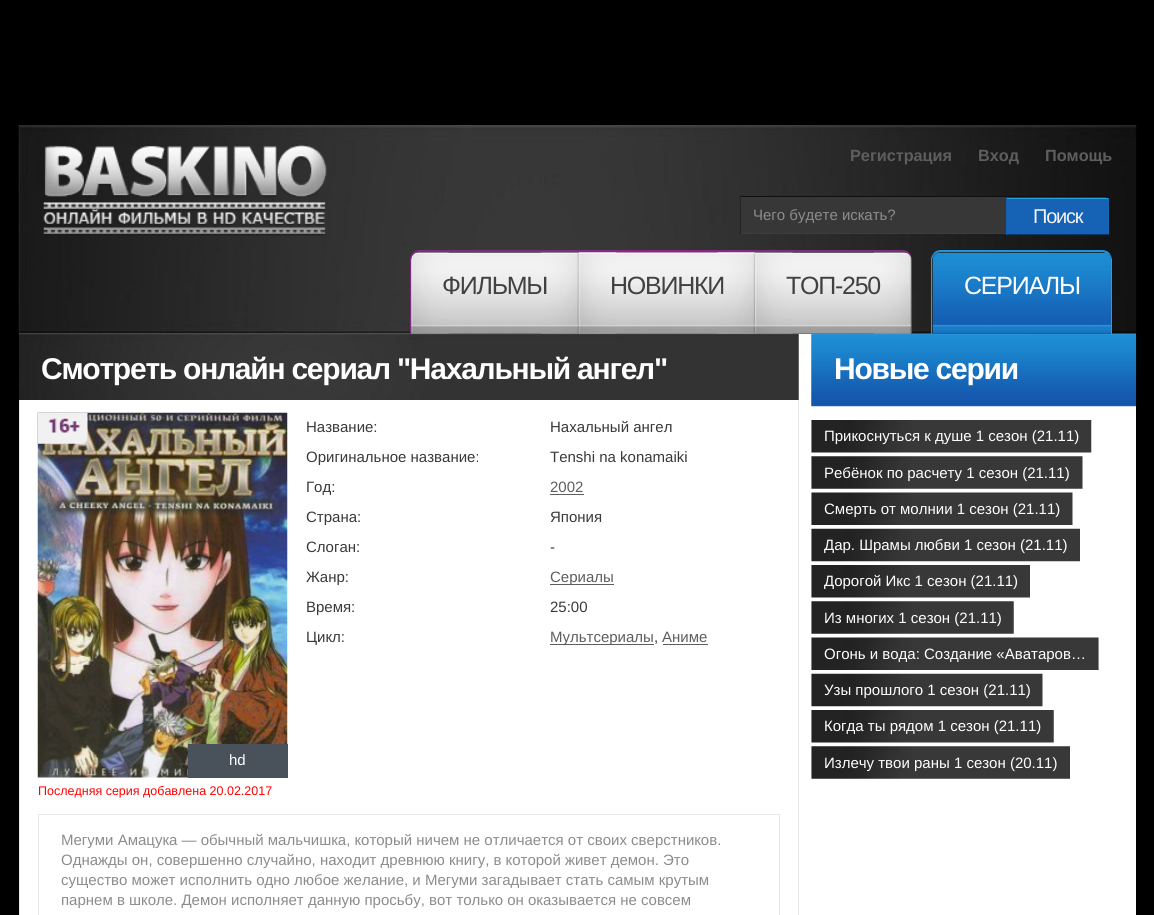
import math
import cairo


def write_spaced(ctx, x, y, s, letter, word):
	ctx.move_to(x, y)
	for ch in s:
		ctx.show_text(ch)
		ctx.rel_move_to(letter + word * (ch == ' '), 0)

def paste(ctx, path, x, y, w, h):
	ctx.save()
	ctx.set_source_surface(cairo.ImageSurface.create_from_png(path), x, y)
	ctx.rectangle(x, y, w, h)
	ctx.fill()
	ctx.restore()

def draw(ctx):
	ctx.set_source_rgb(0, 0, 0)
	ctx.paint()
	ctx.set_source_rgb(1, 1, 1)
	ctx.rectangle(19, 333, 1117, 582)
	ctx.fill()
	paste(ctx, 'media/13.png', 19, 333, 780, 67)
	paste(ctx, 'media/16.png', 811, 333, 326, 74)
	paste(ctx, 'media/1.png', 18, 125, 1119, 209)
	paste(ctx, 'media/2.png', 43, 145, 284, 91)
	ctx.select_font_face('Liberation Sans', cairo.FONT_SLANT_NORMAL, cairo.FONT_WEIGHT_BOLD)
	ctx.set_font_size(16.25)
	ctx.set_source_rgb(0.369, 0.369, 0.369)
	for x, y, s in [
		(850, 161, 'Регистрация'),
		(978, 161, 'Вход'),
		(1045, 161, 'Помощь'),
	]:
		ctx.move_to(x, y)
		ctx.show_text(s)
	ctx.set_source_rgb(0.216, 0.216, 0.216)
	ctx.rectangle(741, 197, 365, 36)
	ctx.fill()
	ctx.set_source_rgb(0.063, 0.063, 0.063)
	ctx.rectangle(740, 196, 366, 1)
	ctx.fill()
	ctx.set_source_rgb(0.239, 0.239, 0.239)
	ctx.rectangle(740, 233, 266, 1)
	ctx.fill()
	ctx.set_source_rgb(0.137, 0.137, 0.137)
	ctx.rectangle(740, 196, 1, 38)
	ctx.fill()
	ctx.select_font_face('Liberation Sans')
	ctx.set_font_size(15)
	ctx.set_source_rgb(0.553, 0.549, 0.549)
	ctx.move_to(753, 220)
	ctx.show_text('Чего будете искать?')
	ctx.set_source_rgb(0.086, 0.384, 0.71)
	ctx.rectangle(1007, 199, 101, 35)
	ctx.fill()
	ctx.set_source_rgb(0.133, 0.631, 0.855)
	ctx.rectangle(1006, 198, 103, 1)
	ctx.fill()
	ctx.set_source_rgb(0.09, 0.412, 0.706)
	ctx.rectangle(1108, 198, 1, 37)
	ctx.fill()
	ctx.set_source_rgb(0.047, 0.208, 0.392)
	ctx.rectangle(1006, 234, 103, 1)
	ctx.fill()
	ctx.set_source_rgb(0.082, 0.373, 0.678)
	ctx.rectangle(1006, 198, 1, 37)
	ctx.fill()
	ctx.set_font_size(20)
	ctx.set_source_rgb(0.957, 0.957, 0.957)
	write_spaced(ctx, 1033, 223, 'Поиск', -1.25, 0)
	ctx.set_source_rgb(0.502, 0.173, 0.506)
	ctx.set_fill_rule(cairo.FILL_RULE_EVEN_ODD)
	ctx.new_path()
	ctx.move_to(420, 250)
	ctx.line_to(579, 250)
	ctx.line_to(579, 334)
	ctx.line_to(410, 334)
	ctx.line_to(410, 260)
	ctx.curve_to(410, 254, 414, 250, 420, 250)
	ctx.close_path()
	ctx.move_to(420, 252)
	ctx.line_to(579, 252)
	ctx.line_to(579, 334)
	ctx.line_to(411, 334)
	ctx.line_to(411, 260)
	ctx.curve_to(411, 256, 415, 252, 420, 252)
	ctx.close_path()
	ctx.fill()
	paste(ctx, 'media/3.png', 411, 252, 168, 82)
	paste(ctx, 'media/4.png', 411, 252, 38, 82)
	paste(ctx, 'media/5.png', 541, 252, 38, 82)
	ctx.set_font_size(25)
	ctx.set_source_rgb(0.255, 0.255, 0.255)
	write_spaced(ctx, 442, 294, 'ФИЛЬМЫ', -1.25, 0)
	ctx.set_source_rgb(0.502, 0.173, 0.506)
	ctx.rectangle(579, 250, 176, 3)
	ctx.fill()
	paste(ctx, 'media/6.png', 578, 252, 177, 82)
	paste(ctx, 'media/7.png', 578, 252, 39, 82)
	paste(ctx, 'media/8.png', 717, 252, 38, 82)
	ctx.set_source_rgb(0.255, 0.255, 0.255)
	write_spaced(ctx, 610, 294, 'НОВИНКИ', -1.25, 0)
	ctx.set_source_rgb(0.502, 0.173, 0.506)
	ctx.new_path()
	ctx.move_to(755, 250)
	ctx.line_to(902, 250)
	ctx.curve_to(908, 250, 912, 254, 912, 260)
	ctx.line_to(912, 334)
	ctx.line_to(755, 334)
	ctx.close_path()
	ctx.move_to(755, 252)
	ctx.line_to(902, 252)
	ctx.curve_to(907, 252, 911, 256, 911, 260)
	ctx.line_to(911, 334)
	ctx.line_to(755, 334)
	ctx.close_path()
	ctx.fill()
	paste(ctx, 'media/9.png', 755, 252, 157, 82)
	paste(ctx, 'media/10.png', 755, 252, 38, 82)
	paste(ctx, 'media/11.png', 873, 252, 39, 82)
	ctx.set_source_rgb(0.255, 0.255, 0.255)
	write_spaced(ctx, 786, 294, 'ТОП-250', -1.25, 0)
	ctx.set_source_rgb(0.129, 0.576, 0.855)
	ctx.set_fill_rule(cairo.FILL_RULE_WINDING)
	ctx.new_path()
	ctx.move_to(941, 250)
	ctx.curve_to(938, 250, 935, 251, 933, 254)
	ctx.line_to(934, 255)
	ctx.curve_to(936, 253, 938, 252, 941, 252)
	ctx.line_to(1102, 252)
	ctx.curve_to(1105, 252, 1108, 254, 1110, 256)
	ctx.line_to(1110, 254)
	ctx.curve_to(1109, 252, 1106, 250, 1102, 250)
	ctx.close_path()
	ctx.fill()
	ctx.set_source_rgb(0.184, 0.604, 0.882)
	ctx.new_path()
	ctx.move_to(1111, 334)
	ctx.line_to(1111, 260)
	ctx.curve_to(1111, 259, 1110, 257, 1110, 256)
	ctx.line_to(1110, 254)
	ctx.curve_to(1111, 256, 1112, 258, 1112, 260)
	ctx.line_to(1112, 334)
	ctx.close_path()
	ctx.fill()
	ctx.new_path()
	ctx.move_to(931, 334)
	ctx.line_to(931, 258)
	ctx.line_to(933, 254)
	ctx.line_to(934, 255)
	ctx.curve_to(933, 257, 932, 258, 932, 260)
	ctx.line_to(932, 334)
	ctx.close_path()
	ctx.fill()
	paste(ctx, 'media/12.png', 932, 252, 179, 82)
	ctx.set_source_rgb(1, 1, 1)
	write_spaced(ctx, 964, 294, 'СЕРИАЛЫ', -1.25, 0)
	ctx.select_font_face('Liberation Sans', cairo.FONT_SLANT_NORMAL, cairo.FONT_WEIGHT_BOLD)
	ctx.set_font_size(30)
	write_spaced(ctx, 41, 379, 'Смотреть онлайн сериал "Нахальный ангел"', -1.25, 0)
	ctx.set_source_rgb(0.914, 0.91, 0.91)
	ctx.rectangle(798, 400, 1, 515)
	ctx.fill()
	ctx.rectangle(19, 400, 1, 515)
	ctx.fill()
	ctx.select_font_face('Liberation Sans')
	ctx.set_font_size(15)
	ctx.set_source_rgb(0.224, 0.224, 0.224)
	for x, y, s in [
		(306, 432, 'Название:'),
		(550, 432, 'Нахальный ангел'),
		(306, 462, 'Оригинальное название:'),
		(550, 462, 'Tenshi na konamaiki'),
		(306, 492, 'Год:'),
	]:
		ctx.move_to(x, y)
		ctx.show_text(s)
	ctx.set_source_rgb(0.369, 0.369, 0.369)
	ctx.move_to(550, 492)
	ctx.show_text('2002')
	ctx.rectangle(550, 494, 34, 1)
	ctx.fill()
	ctx.set_source_rgb(0.224, 0.224, 0.224)
	for x, y, s in [
		(306, 522, 'Страна:'),
		(550, 522, 'Япония'),
		(306, 552, 'Слоган:'),
		(550, 552, '-'),
		(306, 582, 'Жанр:'),
	]:
		ctx.move_to(x, y)
		ctx.show_text(s)
	ctx.set_source_rgb(0.369, 0.369, 0.369)
	ctx.rectangle(550, 584, 64, 1)
	ctx.fill()
	ctx.move_to(550, 582)
	ctx.show_text('Сериалы')
	ctx.set_source_rgb(0.224, 0.224, 0.224)
	for x, y, s in [
		(306, 612, 'Время:'),
		(550, 612, '25:00'),
		(306, 642, 'Цикл:'),
	]:
		ctx.move_to(x, y)
		ctx.show_text(s)
	ctx.set_source_rgb(0.369, 0.369, 0.369)
	ctx.rectangle(550, 644, 104, 1)
	ctx.fill()
	ctx.move_to(550, 642)
	ctx.show_text('Мультсериалы')
	ctx.set_source_rgb(0.224, 0.224, 0.224)
	ctx.move_to(654, 642)
	ctx.show_text(',')
	ctx.set_source_rgb(0.369, 0.369, 0.369)
	ctx.move_to(662, 642)
	ctx.show_text('Аниме')
	ctx.rectangle(663, 644, 45, 1)
	ctx.fill()
	paste(ctx, 'media/14.png', 37, 412, 251, 366)
	paste(ctx, 'media/15.png', 37, 412, 51, 32)
	ctx.set_source_rgb(0.286, 0.318, 0.357)
	ctx.rectangle(188, 744, 100, 34)
	ctx.fill()
	ctx.set_source_rgb(1, 1, 1)
	ctx.move_to(229, 765)
	ctx.show_text('hd')
	ctx.set_font_size(12.5)
	ctx.set_source_rgb(1, 0, 0)
	ctx.move_to(38, 795)
	ctx.show_text('Последняя серия добавлена 20.02.2017')
	ctx.set_source_rgb(0.914, 0.91, 0.91)
	ctx.rectangle(38, 814, 742, 1)
	ctx.rectangle(779, 814, 1, 101)
	ctx.rectangle(38, 814, 1, 101)
	ctx.fill()
	ctx.set_font_size(15)
	ctx.set_source_rgb(0.553, 0.549, 0.549)
	for x, y, s in [
		(61, 845, 'Мегуми Амацука — обычный мальчишка, который ничем не отличается от своих сверстников.'),
		(61, 865, 'Однажды он, совершенно случайно, находит древнюю книгу, в которой живет демон. Это'),
		(61, 885, 'существо может исполнить одно любое желание, и Мегуми загадывает стать самым крутым'),
		(61, 905, 'парнем в школе. Демон исполняет данную просьбу, вот только он оказывается не совсем'),
	]:
		ctx.move_to(x, y)
		ctx.show_text(s)
	ctx.select_font_face('Liberation Sans', cairo.FONT_SLANT_NORMAL, cairo.FONT_WEIGHT_BOLD)
	ctx.set_font_size(30)
	ctx.set_source_rgb(1, 1, 1)
	write_spaced(ctx, 834, 379, 'Новые серии', -1.25, 0)
	paste(ctx, 'media/17.png', 811, 420, 281, 33)
	ctx.select_font_face('Liberation Sans')
	ctx.set_font_size(15)
	ctx.move_to(824, 441)
	ctx.show_text('Прикоснуться к душе 1 сезон (21.11)')
	paste(ctx, 'media/18.png', 811, 456, 272, 33)
	ctx.move_to(824, 478)
	ctx.show_text('Ребёнок по расчету 1 сезон (21.11)')
	paste(ctx, 'media/19.png', 811, 492, 262, 33)
	ctx.move_to(824, 514)
	ctx.show_text('Смерть от молнии 1 сезон (21.11)')
	paste(ctx, 'media/20.png', 811, 528, 269, 34)
	ctx.move_to(824, 550)
	ctx.show_text('Дар. Шрамы любви 1 сезон (21.11)')
	paste(ctx, 'media/21.png', 811, 565, 219, 33)
	ctx.move_to(824, 586)
	ctx.show_text('Дорогой Икс 1 сезон (21.11)')
	paste(ctx, 'media/22.png', 811, 601, 203, 33)
	ctx.move_to(824, 623)
	ctx.show_text('Из многих 1 сезон (21.11)')
	paste(ctx, 'media/23.png', 811, 637, 288, 33)
	ctx.move_to(824, 659)
	ctx.show_text('Огонь и вода: Создание «Аватаров…')
	paste(ctx, 'media/24.png', 811, 673, 232, 34)
	ctx.move_to(824, 695)
	ctx.show_text('Узы прошлого 1 сезон (21.11)')
	paste(ctx, 'media/25.png', 811, 710, 243, 33)
	ctx.move_to(824, 731)
	ctx.show_text('Когда ты рядом 1 сезон (21.11)')
	paste(ctx, 'media/26.png', 811, 746, 259, 33)
	ctx.move_to(824, 768)
	ctx.show_text('Излечу твои раны 1 сезон (20.11)')


surface = cairo.ImageSurface(cairo.FORMAT_RGB24, 1154, 915)
ctx = cairo.Context(surface)
options = cairo.FontOptions()
options.set_hint_metrics(cairo.HINT_METRICS_OFF)
options.set_hint_style(cairo.HINT_STYLE_NONE)
ctx.set_font_options(options)
ctx.set_miter_limit(4)
draw(ctx)
surface.write_to_png('image.png')
